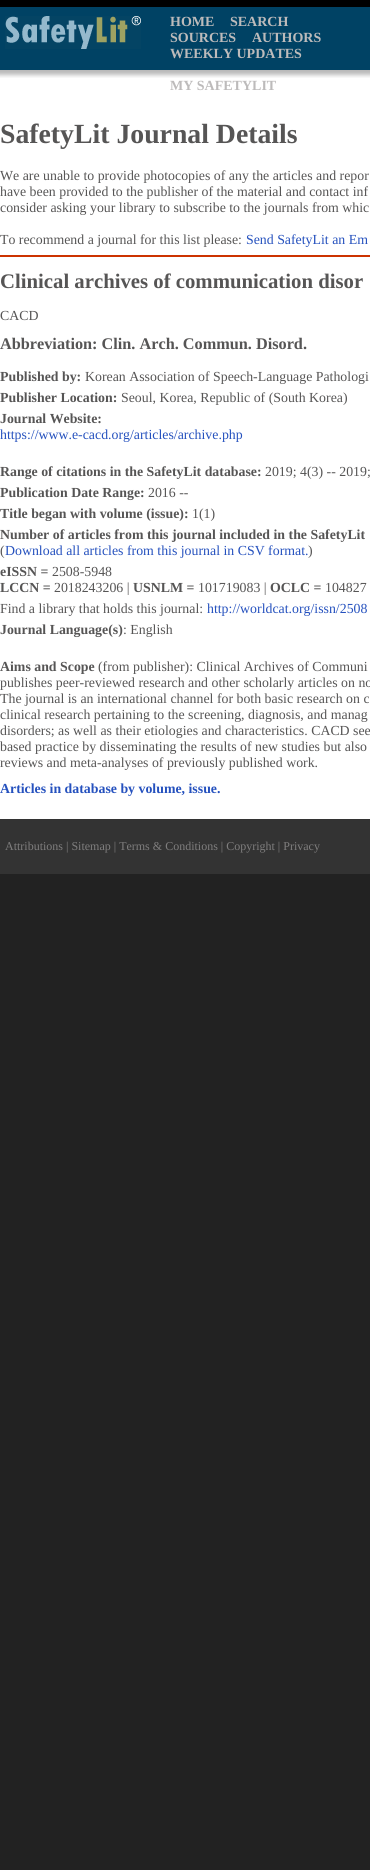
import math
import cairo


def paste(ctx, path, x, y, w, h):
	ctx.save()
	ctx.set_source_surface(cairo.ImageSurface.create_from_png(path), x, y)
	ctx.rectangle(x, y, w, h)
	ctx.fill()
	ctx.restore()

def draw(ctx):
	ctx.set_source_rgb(0.133, 0.133, 0.133)
	ctx.paint()
	ctx.set_source_rgb(1, 1, 1)
	ctx.rectangle(0, 70, 370, 749)
	ctx.fill()
	paste(ctx, 'media/1.png', 0, 0, 370, 78)
	paste(ctx, 'media/2.png', 5, 16, 136, 33)
	ctx.select_font_face('Liberation Serif', cairo.FONT_SLANT_NORMAL, cairo.FONT_WEIGHT_BOLD)
	ctx.set_font_size(14)
	ctx.set_source_rgb(0.741, 0.733, 0.733)
	for x, y, s in [
		(170, 26, 'HOME'),
		(230, 26, 'SEARCH'),
		(170, 42, 'SOURCES'),
		(252, 42, 'AUTHORS'),
		(170, 58, 'WEEKLY UPDATES'),
		(170, 90, 'MY SAFETYLIT'),
	]:
		ctx.move_to(x, y)
		ctx.show_text(s)
	ctx.set_font_size(27.75)
	ctx.set_source_rgb(0.337, 0.333, 0.333)
	ctx.move_to(0, 143)
	ctx.show_text('SafetyLit Journal Details')
	ctx.select_font_face('Liberation Serif')
	ctx.set_font_size(13.85)
	for x, y, s in [
		(0, 180, 'We are unable to provide photocopies of any the articles and repor'),
		(0, 196, 'have been provided to the publisher of the material and contact inf'),
		(0, 212, 'consider asking your library to subscribe to the journals from whic'),
		(0, 244, 'To recommend a journal for this list please:'),
	]:
		ctx.move_to(x, y)
		ctx.show_text(s)
	ctx.set_source_rgb(0.145, 0.318, 0.745)
	ctx.move_to(246, 244)
	ctx.show_text('Send SafetyLit an Em')
	ctx.set_source_rgb(0.8, 0.2, 0)
	ctx.rectangle(0, 255, 370, 2)
	ctx.fill()
	ctx.select_font_face('Liberation Serif', cairo.FONT_SLANT_NORMAL, cairo.FONT_WEIGHT_BOLD)
	ctx.set_font_size(20.75)
	ctx.set_source_rgb(0.337, 0.333, 0.333)
	ctx.move_to(0, 288)
	ctx.show_text('Clinical archives of communication disor')
	ctx.select_font_face('Liberation Serif')
	ctx.set_font_size(13.85)
	ctx.move_to(0, 320)
	ctx.show_text('CACD')
	ctx.select_font_face('Liberation Serif', cairo.FONT_SLANT_NORMAL, cairo.FONT_WEIGHT_BOLD)
	ctx.set_font_size(16.25)
	ctx.move_to(0, 349)
	ctx.show_text('Abbreviation: Clin. Arch. Commun. Disord.')
	ctx.set_font_size(13.85)
	ctx.move_to(0, 381)
	ctx.show_text('Published by:')
	ctx.select_font_face('Liberation Serif')
	ctx.move_to(85, 381)
	ctx.show_text('Korean Association of Speech-Language Pathologi')
	ctx.select_font_face('Liberation Serif', cairo.FONT_SLANT_NORMAL, cairo.FONT_WEIGHT_BOLD)
	ctx.move_to(0, 402)
	ctx.show_text('Publisher Location:')
	ctx.select_font_face('Liberation Serif')
	ctx.move_to(121, 402)
	ctx.show_text('Seoul, Korea, Republic of (South Korea)')
	ctx.select_font_face('Liberation Serif', cairo.FONT_SLANT_NORMAL, cairo.FONT_WEIGHT_BOLD)
	ctx.move_to(0, 423)
	ctx.show_text('Journal Website:')
	ctx.select_font_face('Liberation Serif')
	ctx.set_source_rgb(0.145, 0.318, 0.745)
	ctx.move_to(0, 439)
	ctx.show_text('https://www.e-cacd.org/articles/archive.php')
	ctx.select_font_face('Liberation Serif', cairo.FONT_SLANT_NORMAL, cairo.FONT_WEIGHT_BOLD)
	ctx.set_source_rgb(0.337, 0.333, 0.333)
	ctx.move_to(0, 476)
	ctx.show_text('Range of citations in the SafetyLit database:')
	ctx.select_font_face('Liberation Serif')
	ctx.move_to(265, 476)
	ctx.show_text('2019; 4(3) -- 2019;')
	ctx.select_font_face('Liberation Serif', cairo.FONT_SLANT_NORMAL, cairo.FONT_WEIGHT_BOLD)
	ctx.move_to(0, 497)
	ctx.show_text('Publication Date Range:')
	ctx.select_font_face('Liberation Serif')
	ctx.move_to(148, 497)
	ctx.show_text('2016 --')
	ctx.select_font_face('Liberation Serif', cairo.FONT_SLANT_NORMAL, cairo.FONT_WEIGHT_BOLD)
	ctx.move_to(0, 518)
	ctx.show_text('Title began with volume (issue):')
	ctx.select_font_face('Liberation Serif')
	ctx.move_to(192, 518)
	ctx.show_text('1(1)')
	ctx.select_font_face('Liberation Serif', cairo.FONT_SLANT_NORMAL, cairo.FONT_WEIGHT_BOLD)
	ctx.move_to(0, 539)
	ctx.show_text('Number of articles from this journal included in the SafetyLit')
	ctx.select_font_face('Liberation Serif')
	ctx.move_to(0, 555)
	ctx.show_text('(')
	ctx.set_source_rgb(0.145, 0.318, 0.745)
	ctx.move_to(5, 555)
	ctx.show_text('Download all articles from this journal in CSV format.')
	ctx.set_source_rgb(0.337, 0.333, 0.333)
	ctx.move_to(308, 555)
	ctx.show_text(')')
	ctx.select_font_face('Liberation Serif', cairo.FONT_SLANT_NORMAL, cairo.FONT_WEIGHT_BOLD)
	ctx.move_to(0, 576)
	ctx.show_text('eISSN =')
	ctx.select_font_face('Liberation Serif')
	ctx.move_to(52, 576)
	ctx.show_text('2508-5948')
	ctx.select_font_face('Liberation Serif', cairo.FONT_SLANT_NORMAL, cairo.FONT_WEIGHT_BOLD)
	ctx.move_to(0, 592)
	ctx.show_text('LCCN =')
	ctx.select_font_face('Liberation Serif')
	ctx.move_to(54, 592)
	ctx.show_text('2018243206 |')
	ctx.select_font_face('Liberation Serif', cairo.FONT_SLANT_NORMAL, cairo.FONT_WEIGHT_BOLD)
	ctx.move_to(133, 592)
	ctx.show_text('USNLM =')
	ctx.select_font_face('Liberation Serif')
	ctx.move_to(198, 592)
	ctx.show_text('101719083 |')
	ctx.select_font_face('Liberation Serif', cairo.FONT_SLANT_NORMAL, cairo.FONT_WEIGHT_BOLD)
	ctx.move_to(270, 592)
	ctx.show_text('OCLC =')
	ctx.select_font_face('Liberation Serif')
	ctx.move_to(325, 592)
	ctx.show_text('104827')
	ctx.move_to(0, 613)
	ctx.show_text('Find a library that holds this journal:')
	ctx.set_source_rgb(0.145, 0.318, 0.745)
	ctx.move_to(207, 613)
	ctx.show_text('http://worldcat.org/issn/2508')
	ctx.select_font_face('Liberation Serif', cairo.FONT_SLANT_NORMAL, cairo.FONT_WEIGHT_BOLD)
	ctx.set_source_rgb(0.337, 0.333, 0.333)
	ctx.move_to(0, 634)
	ctx.show_text('Journal Language(s)')
	ctx.select_font_face('Liberation Serif')
	ctx.move_to(123, 634)
	ctx.show_text(': English')
	ctx.select_font_face('Liberation Serif', cairo.FONT_SLANT_NORMAL, cairo.FONT_WEIGHT_BOLD)
	ctx.move_to(0, 671)
	ctx.show_text('Aims and Scope')
	ctx.select_font_face('Liberation Serif')
	for x, y, s in [
		(98, 671, '(from publisher): Clinical Archives of Communi'),
		(0, 687, 'publishes peer-reviewed research and other scholarly articles on no'),
		(0, 703, 'The journal is an international channel for both basic research on c'),
		(0, 719, 'clinical research pertaining to the screening, diagnosis, and manag'),
		(0, 735, 'disorders; as well as their etiologies and characteristics. CACD see'),
		(0, 751, 'based practice by disseminating the results of new studies but also'),
		(0, 767, 'reviews and meta-analyses of previously published work.'),
	]:
		ctx.move_to(x, y)
		ctx.show_text(s)
	ctx.select_font_face('Liberation Serif', cairo.FONT_SLANT_NORMAL, cairo.FONT_WEIGHT_BOLD)
	ctx.set_source_rgb(0.145, 0.318, 0.745)
	ctx.move_to(0, 793)
	ctx.show_text('Articles in database by volume, issue.')
	ctx.set_source_rgb(0.2, 0.2, 0.2)
	ctx.rectangle(0, 819, 370, 55)
	ctx.fill()
	ctx.select_font_face('Liberation Serif')
	ctx.set_font_size(12)
	ctx.set_source_rgb(0.498, 0.494, 0.494)
	ctx.move_to(5, 850)
	ctx.show_text('Attributions | Sitemap | Terms & Conditions | Copyright | Privacy')


surface = cairo.ImageSurface(cairo.FORMAT_RGB24, 370, 1870)
ctx = cairo.Context(surface)
options = cairo.FontOptions()
options.set_hint_metrics(cairo.HINT_METRICS_OFF)
options.set_hint_style(cairo.HINT_STYLE_NONE)
ctx.set_font_options(options)
ctx.set_miter_limit(4)
draw(ctx)
surface.write_to_png('image.png')
